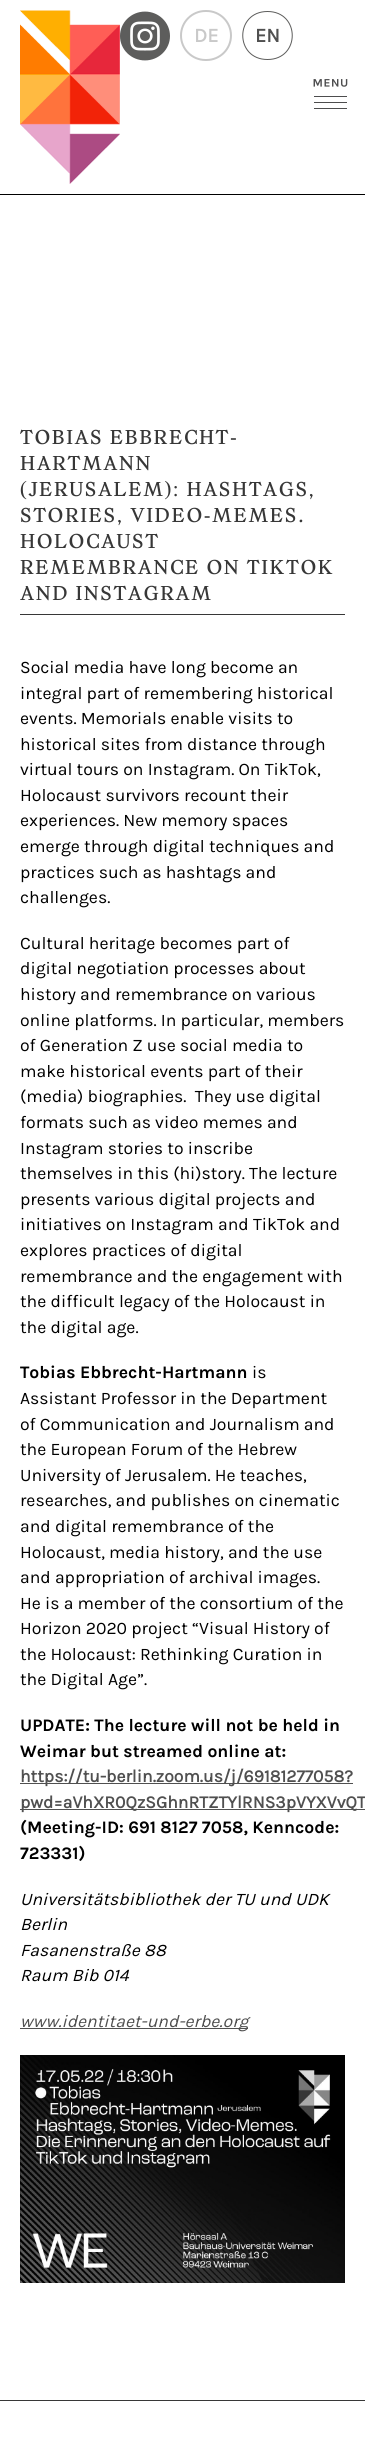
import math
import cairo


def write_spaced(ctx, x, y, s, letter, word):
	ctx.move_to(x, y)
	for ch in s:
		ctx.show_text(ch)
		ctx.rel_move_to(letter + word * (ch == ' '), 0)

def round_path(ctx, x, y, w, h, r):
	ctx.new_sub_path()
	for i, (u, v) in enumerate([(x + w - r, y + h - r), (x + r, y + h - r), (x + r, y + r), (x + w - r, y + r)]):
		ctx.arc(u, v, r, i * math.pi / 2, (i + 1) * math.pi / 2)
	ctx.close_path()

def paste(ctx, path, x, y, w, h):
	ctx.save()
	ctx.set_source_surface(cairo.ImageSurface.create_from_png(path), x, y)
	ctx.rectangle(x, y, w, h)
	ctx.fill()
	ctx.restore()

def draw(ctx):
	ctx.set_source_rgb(1, 1, 1)
	ctx.paint()
	ctx.set_source_rgb(0, 0, 0)
	ctx.rectangle(0, 194, 365, 1)
	ctx.fill()
	paste(ctx, 'media/1.png', 20, 10, 100, 174)
	paste(ctx, 'media/2.png', 120, 11, 50, 50)
	round_path(ctx, 181, 11, 50, 49, 24.5)
	ctx.set_source_rgb(0.788, 0.788, 0.788)
	ctx.stroke()
	ctx.select_font_face('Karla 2', cairo.FONT_SLANT_NORMAL, cairo.FONT_WEIGHT_BOLD)
	ctx.set_font_size(20)
	ctx.move_to(194, 42)
	ctx.show_text('DE')
	ctx.new_path()
	ctx.move_to(267.5, 11.5)
	ctx.curve_to(300.5, 11.5, 300.5, 59.5, 267.5, 59.5)
	ctx.curve_to(234.5, 59.5, 234.5, 11.5, 267.5, 11.5)
	ctx.close_path()
	ctx.set_source_rgb(0.365, 0.365, 0.361)
	ctx.set_line_width(1)
	ctx.stroke()
	ctx.set_source_rgb(0.314, 0.314, 0.314)
	ctx.move_to(255, 42)
	ctx.show_text('EN')
	paste(ctx, 'media/3.png', 313, 79, 35, 30)
	ctx.set_source_rgb(0.216, 0.216, 0.216)
	ctx.rectangle(20, 614, 325, 1)
	ctx.fill()
	ctx.select_font_face('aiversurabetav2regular')
	for x, y, s in [
		(20, 444, 'TOBIAS EBBRECHT-'),
		(20, 470, 'HARTMANN'),
		(20, 496, '(JERUSALEM): HASHTAGS,'),
		(20, 522, 'STORIES, VIDEO-MEMES.'),
		(20, 548, 'HOLOCAUST'),
		(20, 574, 'REMEMBRANCE ON TIKTOK'),
		(20, 600, 'AND INSTAGRAM'),
	]:
		write_spaced(ctx, x, y, s, 1.5, 0)
	ctx.select_font_face('Karla')
	ctx.set_font_size(17.6)
	ctx.set_source_rgb(0, 0, 0)
	for x, y, s in [
		(20, 673, 'Social media have long become an'),
		(20, 699, 'integral part of remembering historical'),
		(20, 724, 'events. Memorials enable visits to'),
		(20, 750, 'historical sites from distance through'),
		(20, 775, 'virtual tours on Instagram. On TikTok,'),
		(20, 801, 'Holocaust survivors recount their'),
		(20, 826, 'experiences. New memory spaces'),
		(20, 852, 'emerge through digital techniques and'),
		(20, 878, 'practices such as hashtags and'),
		(20, 903, 'challenges.'),
		(20, 949, 'Cultural heritage becomes part of'),
		(20, 974, 'digital negotiation processes about'),
		(20, 1000, 'history and remembrance on various'),
		(20, 1026, 'online platforms. In particular, members'),
		(20, 1051, 'of Generation Z use social media to'),
		(20, 1077, 'make historical events part of their'),
		(20, 1102, '(media) biographies.  They use digital'),
		(20, 1128, 'formats such as video memes and'),
		(20, 1154, 'Instagram stories to inscribe'),
		(20, 1179, 'themselves in this (hi)story. The lecture'),
		(20, 1205, 'presents various digital projects and'),
		(20, 1230, 'initiatives on Instagram and TikTok and'),
		(20, 1256, 'explores practices of digital'),
		(20, 1282, 'remembrance and the engagement with'),
		(20, 1307, 'the difficult legacy of the Holocaust in'),
		(20, 1333, 'the digital age.'),
	]:
		ctx.move_to(x, y)
		ctx.show_text(s)
	ctx.select_font_face('Karla', cairo.FONT_SLANT_NORMAL, cairo.FONT_WEIGHT_BOLD)
	ctx.move_to(20, 1378)
	ctx.show_text('Tobias Ebbrecht-Hartmann')
	ctx.select_font_face('Karla')
	for x, y, s in [
		(252, 1378, 'is'),
		(20, 1404, 'Assistant Professor in the Department'),
		(20, 1430, 'of Communication and Journalism and'),
		(20, 1455, 'the European Forum of the Hebrew'),
		(20, 1481, 'University of Jerusalem. He teaches,'),
		(20, 1506, 'researches, and publishes on cinematic'),
		(20, 1532, 'and digital remembrance of the'),
		(20, 1558, 'Holocaust, media history, and the use'),
		(20, 1583, 'and appropriation of archival images.'),
		(20, 1609, 'He is a member of the consortium of the'),
		(20, 1634, 'Horizon 2020 project “Visual History of'),
		(20, 1660, 'the Holocaust: Rethinking Curation in'),
		(20, 1685, 'the Digital Age”.'),
	]:
		ctx.move_to(x, y)
		ctx.show_text(s)
	ctx.select_font_face('Karla', cairo.FONT_SLANT_NORMAL, cairo.FONT_WEIGHT_BOLD)
	ctx.move_to(20, 1731)
	ctx.show_text('UPDATE: The lecture will not be held in')
	ctx.move_to(20, 1757)
	ctx.show_text('Weimar but streamed online at:')
	ctx.set_source_rgb(0.314, 0.314, 0.314)
	ctx.rectangle(20, 1783, 333, 1)
	ctx.fill()
	ctx.select_font_face('Karla 2', cairo.FONT_SLANT_NORMAL, cairo.FONT_WEIGHT_BOLD)
	ctx.move_to(20, 1782)
	ctx.show_text('https://tu-berlin.zoom.us/j/69181277058?')
	ctx.rectangle(20, 1809, 345, 1)
	ctx.fill()
	ctx.move_to(20, 1808)
	ctx.show_text('pwd=aVhXR0QzSGhnRTZTYlRNS3pVYXVvQT')
	ctx.select_font_face('Karla', cairo.FONT_SLANT_NORMAL, cairo.FONT_WEIGHT_BOLD)
	ctx.set_source_rgb(0, 0, 0)
	ctx.move_to(20, 1833)
	ctx.show_text('(Meeting-ID: 691 8127 7058, Kenncode:')
	ctx.move_to(20, 1859)
	ctx.show_text('723331)')
	ctx.select_font_face('Karla', cairo.FONT_SLANT_ITALIC)
	for x, y, s in [
		(20, 1905, 'Universitätsbibliothek der TU und UDK'),
		(20, 1930, 'Berlin'),
		(20, 1956, 'Fasanenstraße 88'),
		(20, 1981, 'Raum Bib 014'),
	]:
		ctx.move_to(x, y)
		ctx.show_text(s)
	ctx.set_source_rgb(0.314, 0.314, 0.314)
	ctx.rectangle(20, 2028, 228, 1)
	ctx.fill()
	ctx.move_to(20, 2027)
	ctx.show_text('www.identitaet-und-erbe.org')
	paste(ctx, 'media/4.png', 20, 2055, 325, 228)
	ctx.set_source_rgb(0.216, 0.216, 0.216)
	ctx.rectangle(0, 2400, 365, 1)
	ctx.fill()


surface = cairo.ImageSurface(cairo.FORMAT_RGB24, 365, 2437)
ctx = cairo.Context(surface)
options = cairo.FontOptions()
options.set_hint_metrics(cairo.HINT_METRICS_OFF)
options.set_hint_style(cairo.HINT_STYLE_NONE)
ctx.set_font_options(options)
ctx.set_miter_limit(4)
draw(ctx)
surface.write_to_png('image.png')
